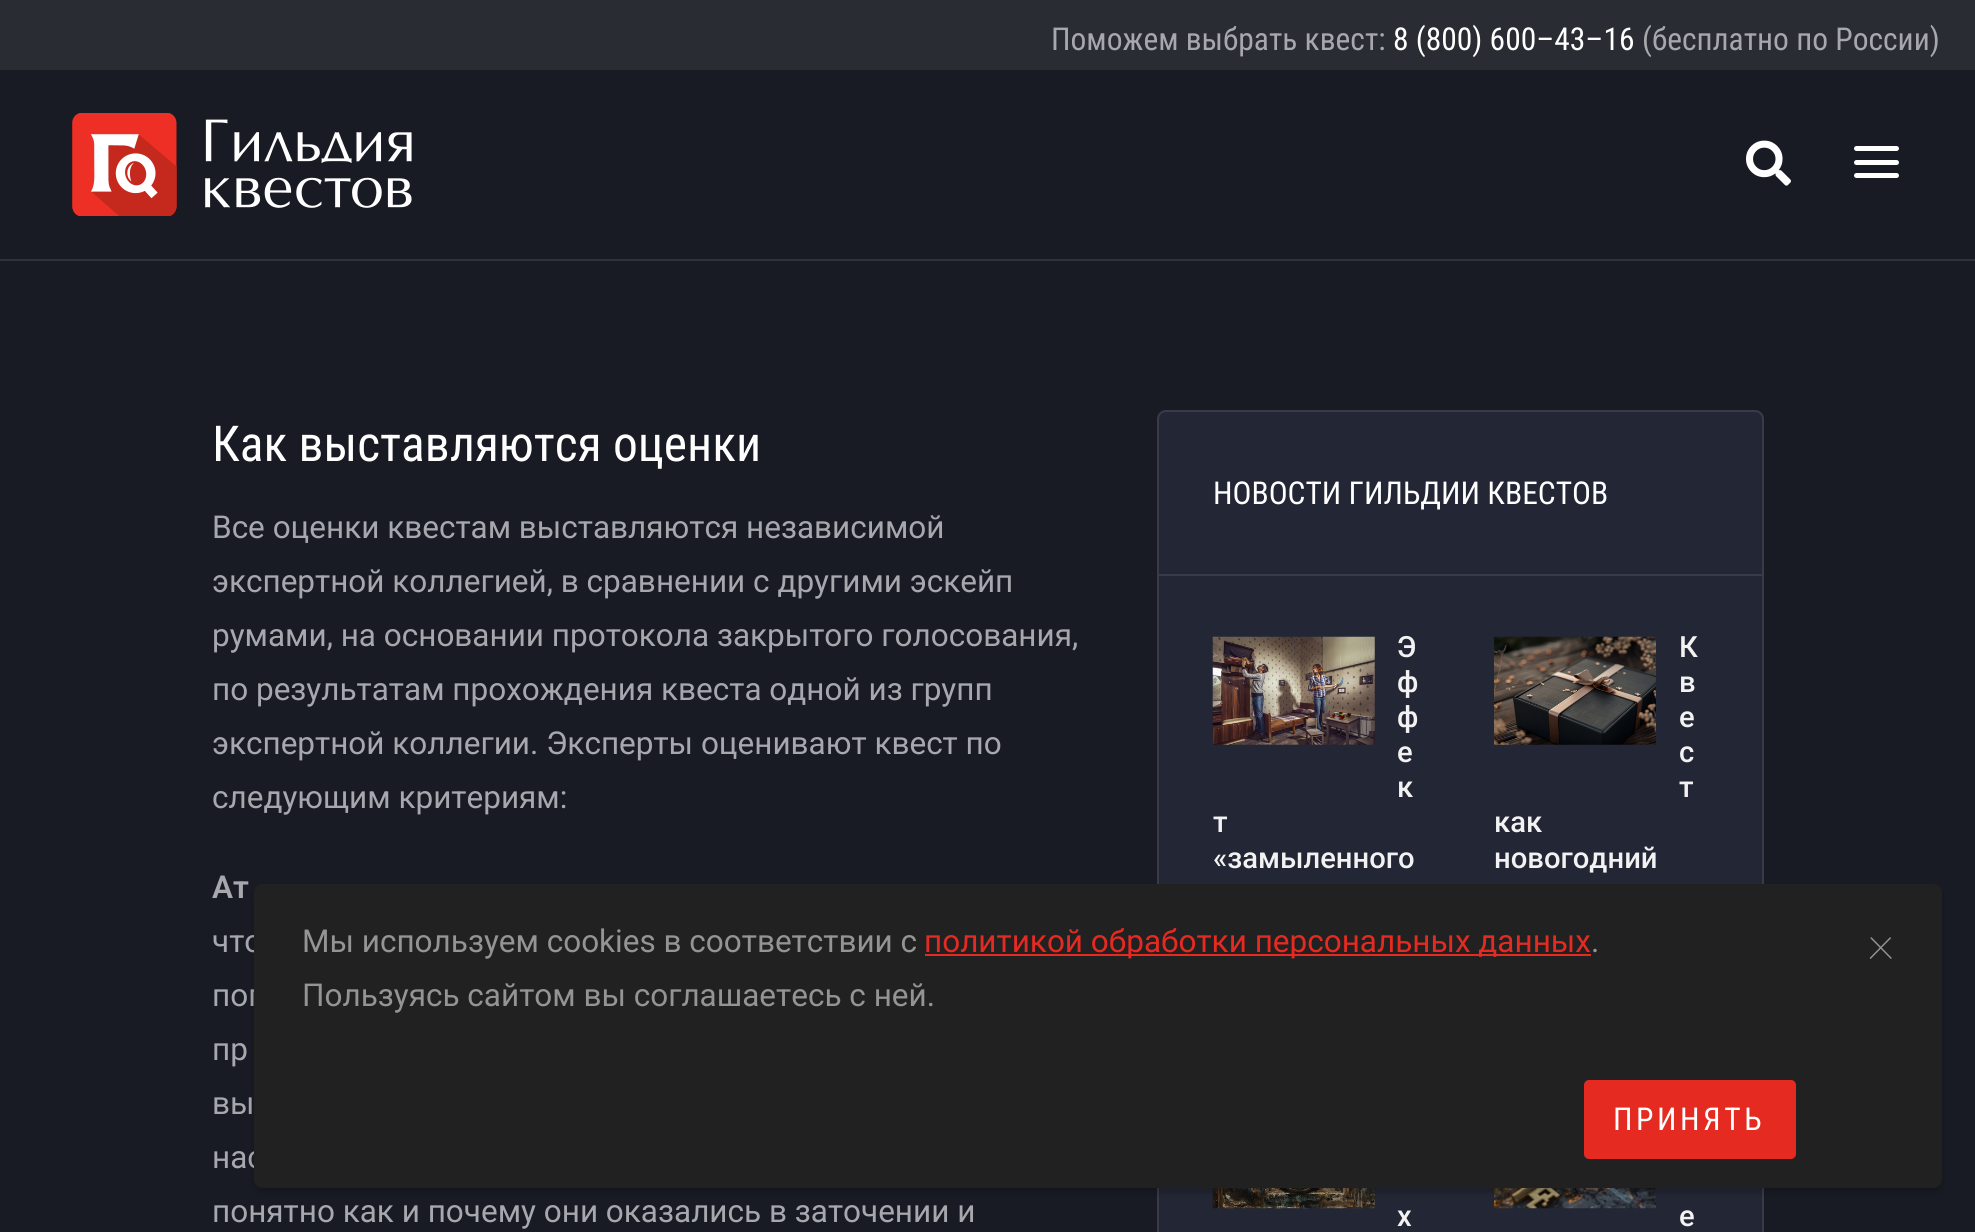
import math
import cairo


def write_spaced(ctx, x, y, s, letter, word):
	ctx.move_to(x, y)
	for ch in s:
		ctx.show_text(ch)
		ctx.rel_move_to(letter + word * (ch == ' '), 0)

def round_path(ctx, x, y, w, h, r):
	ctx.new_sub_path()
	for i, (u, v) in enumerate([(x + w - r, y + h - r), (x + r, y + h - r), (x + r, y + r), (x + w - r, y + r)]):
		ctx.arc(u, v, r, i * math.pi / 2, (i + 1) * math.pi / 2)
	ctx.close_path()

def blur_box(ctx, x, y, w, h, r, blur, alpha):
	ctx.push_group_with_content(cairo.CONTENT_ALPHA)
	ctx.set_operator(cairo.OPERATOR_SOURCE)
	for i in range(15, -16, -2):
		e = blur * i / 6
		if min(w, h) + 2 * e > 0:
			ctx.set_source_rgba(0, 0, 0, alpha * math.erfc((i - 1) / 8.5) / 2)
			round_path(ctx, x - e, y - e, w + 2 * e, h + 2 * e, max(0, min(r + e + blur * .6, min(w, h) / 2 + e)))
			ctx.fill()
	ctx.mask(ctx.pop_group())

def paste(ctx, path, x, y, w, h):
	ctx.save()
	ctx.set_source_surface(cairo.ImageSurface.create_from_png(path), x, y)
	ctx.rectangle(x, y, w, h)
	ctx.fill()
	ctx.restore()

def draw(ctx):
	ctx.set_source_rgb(0.098, 0.106, 0.141)
	ctx.paint()
	ctx.set_source_rgb(0.161, 0.176, 0.2)
	ctx.rectangle(0, 0, 1975, 70)
	ctx.fill()
	ctx.select_font_face('Roboto Condensed')
	ctx.set_font_size(31.5)
	ctx.set_source_rgb(0.655, 0.659, 0.682)
	ctx.move_to(1051, 50)
	ctx.show_text('Поможем выбрать квест:')
	ctx.set_source_rgb(1, 1, 1)
	ctx.move_to(1393, 50)
	ctx.show_text('8 (800) 600–43–16')
	ctx.set_source_rgb(0.655, 0.659, 0.682)
	ctx.move_to(1642, 50)
	ctx.show_text('(бесплатно по России)')
	ctx.set_source_rgb(0.188, 0.196, 0.227)
	ctx.rectangle(0, 259, 1975, 2)
	ctx.fill()
	paste(ctx, 'media/1.png', 72, 113, 340, 103)
	paste(ctx, 'media/2.png', 1746, 140, 45, 46)
	ctx.set_source_rgb(1, 1, 1)
	round_path(ctx, 1854, 146, 45, 5, 2.5)
	ctx.fill()
	round_path(ctx, 1854, 160, 45, 5, 2.5)
	ctx.fill()
	round_path(ctx, 1854, 173, 45, 5, 2.5)
	ctx.fill()
	ctx.set_font_size(49.5)
	ctx.move_to(212, 461)
	ctx.show_text('Как выставляются оценки')
	ctx.select_font_face('Roboto')
	ctx.set_font_size(31.5)
	ctx.set_source_rgb(0.655, 0.659, 0.682)
	for x, y, s in [
		(212, 538, 'Все оценки квестам выставляются независимой'),
		(212, 592, 'экспертной коллегией, в сравнении с другими эскейп'),
		(212, 646, 'румами, на основании протокола закрытого голосования,'),
		(212, 700, 'по результатам прохождения квеста одной из групп'),
		(212, 754, 'экспертной коллегии. Эксперты оценивают квест по'),
		(212, 808, 'следующим критериям:'),
	]:
		ctx.move_to(x, y)
		ctx.show_text(s)
	ctx.select_font_face('Roboto SemiBold')
	ctx.move_to(212, 898)
	ctx.show_text('Ат')
	ctx.select_font_face('Roboto')
	for x, y, s in [
		(212, 952, 'что'),
		(212, 1006, 'пог'),
		(212, 1060, 'пр'),
		(212, 1114, 'вы'),
		(212, 1168, 'нас'),
		(212, 1222, 'понятно как и почему они оказались в заточении и'),
	]:
		ctx.move_to(x, y)
		ctx.show_text(s)
	ctx.set_source_rgb(0.137, 0.149, 0.204)
	round_path(ctx, 1157, 410, 607, 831, 9)
	ctx.fill()
	round_path(ctx, 1158, 411, 605, 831, 8)
	ctx.set_source_rgba(1, 1, 1, 0.1)
	ctx.stroke()
	ctx.set_source_rgb(0.224, 0.235, 0.282)
	ctx.rectangle(1159, 574, 603, 2)
	ctx.fill()
	ctx.select_font_face('Roboto Condensed')
	ctx.set_source_rgb(1, 1, 1)
	ctx.move_to(1213, 504)
	ctx.show_text('НОВОСТИ ГИЛЬДИИ КВЕСТОВ')
	ctx.select_font_face('Roboto Medium')
	ctx.set_font_size(29.25)
	ctx.set_source_rgb(0.949, 0.949, 0.949)
	for x, y, s in [
		(1397, 657, 'Э'),
		(1397, 692, 'ф'),
		(1397, 727, 'ф'),
		(1397, 762, 'е'),
		(1397, 797, 'к'),
		(1213, 832, 'т'),
		(1213, 868, '«замыленного'),
	]:
		ctx.move_to(x, y)
		ctx.show_text(s)
	paste(ctx, 'media/3.png', 1212, 636, 163, 109)
	paste(ctx, 'media/4.png', 1494, 636, 162, 109)
	for x, y, s in [
		(1679, 657, 'К'),
		(1679, 692, 'в'),
		(1679, 727, 'е'),
		(1679, 762, 'с'),
		(1679, 797, 'т'),
		(1494, 832, 'как'),
		(1494, 868, 'новогодний'),
	]:
		ctx.move_to(x, y)
		ctx.show_text(s)
	paste(ctx, 'media/5.png', 1212, 1188, 163, 21)
	ctx.move_to(1397, 1226)
	ctx.show_text('х')
	paste(ctx, 'media/6.png', 1494, 1188, 162, 21)
	ctx.move_to(1679, 1226)
	ctx.show_text('е')
	ctx.set_source_rgb(0, 0, 0)
	blur_box(ctx, 254, 889, 1688, 304, 9, 3.5, 0.2)
	ctx.set_source_rgb(0.129, 0.129, 0.129)
	round_path(ctx, 254, 884, 1688, 304, 9)
	ctx.fill()
	ctx.select_font_face('Roboto')
	ctx.set_font_size(31.5)
	ctx.set_source_rgb(0.58, 0.58, 0.58)
	ctx.move_to(302, 952)
	ctx.show_text('Мы используем cookies в соответствии с')
	ctx.set_source_rgb(0.894, 0.165, 0.129)
	ctx.rectangle(925, 954, 666, 2)
	ctx.fill()
	ctx.move_to(924, 952)
	ctx.show_text('политикой обработки персональных данных')
	ctx.set_source_rgb(0.58, 0.58, 0.58)
	ctx.move_to(1591, 952)
	ctx.show_text('.')
	ctx.move_to(302, 1006)
	ctx.show_text('Пользуясь сайтом вы соглашаетесь с ней.')
	ctx.select_font_face('Roboto Thin')
	ctx.set_font_size(54)
	ctx.move_to(1867, 959)
	ctx.show_text('×')
	ctx.set_source_rgb(0.894, 0.165, 0.129)
	round_path(ctx, 1585, 1081, 210, 77, 4)
	ctx.fill_preserve()
	ctx.stroke()
	ctx.select_font_face('Roboto Condensed')
	ctx.set_font_size(31.5)
	ctx.set_source_rgb(1, 1, 1)
	write_spaced(ctx, 1613, 1130, 'ПРИНЯТЬ', 3.5, 0)


surface = cairo.ImageSurface(cairo.FORMAT_RGB24, 1975, 1232)
ctx = cairo.Context(surface)
options = cairo.FontOptions()
options.set_hint_metrics(cairo.HINT_METRICS_OFF)
options.set_hint_style(cairo.HINT_STYLE_NONE)
ctx.set_font_options(options)
ctx.set_miter_limit(4)
draw(ctx)
surface.write_to_png('image.png')
